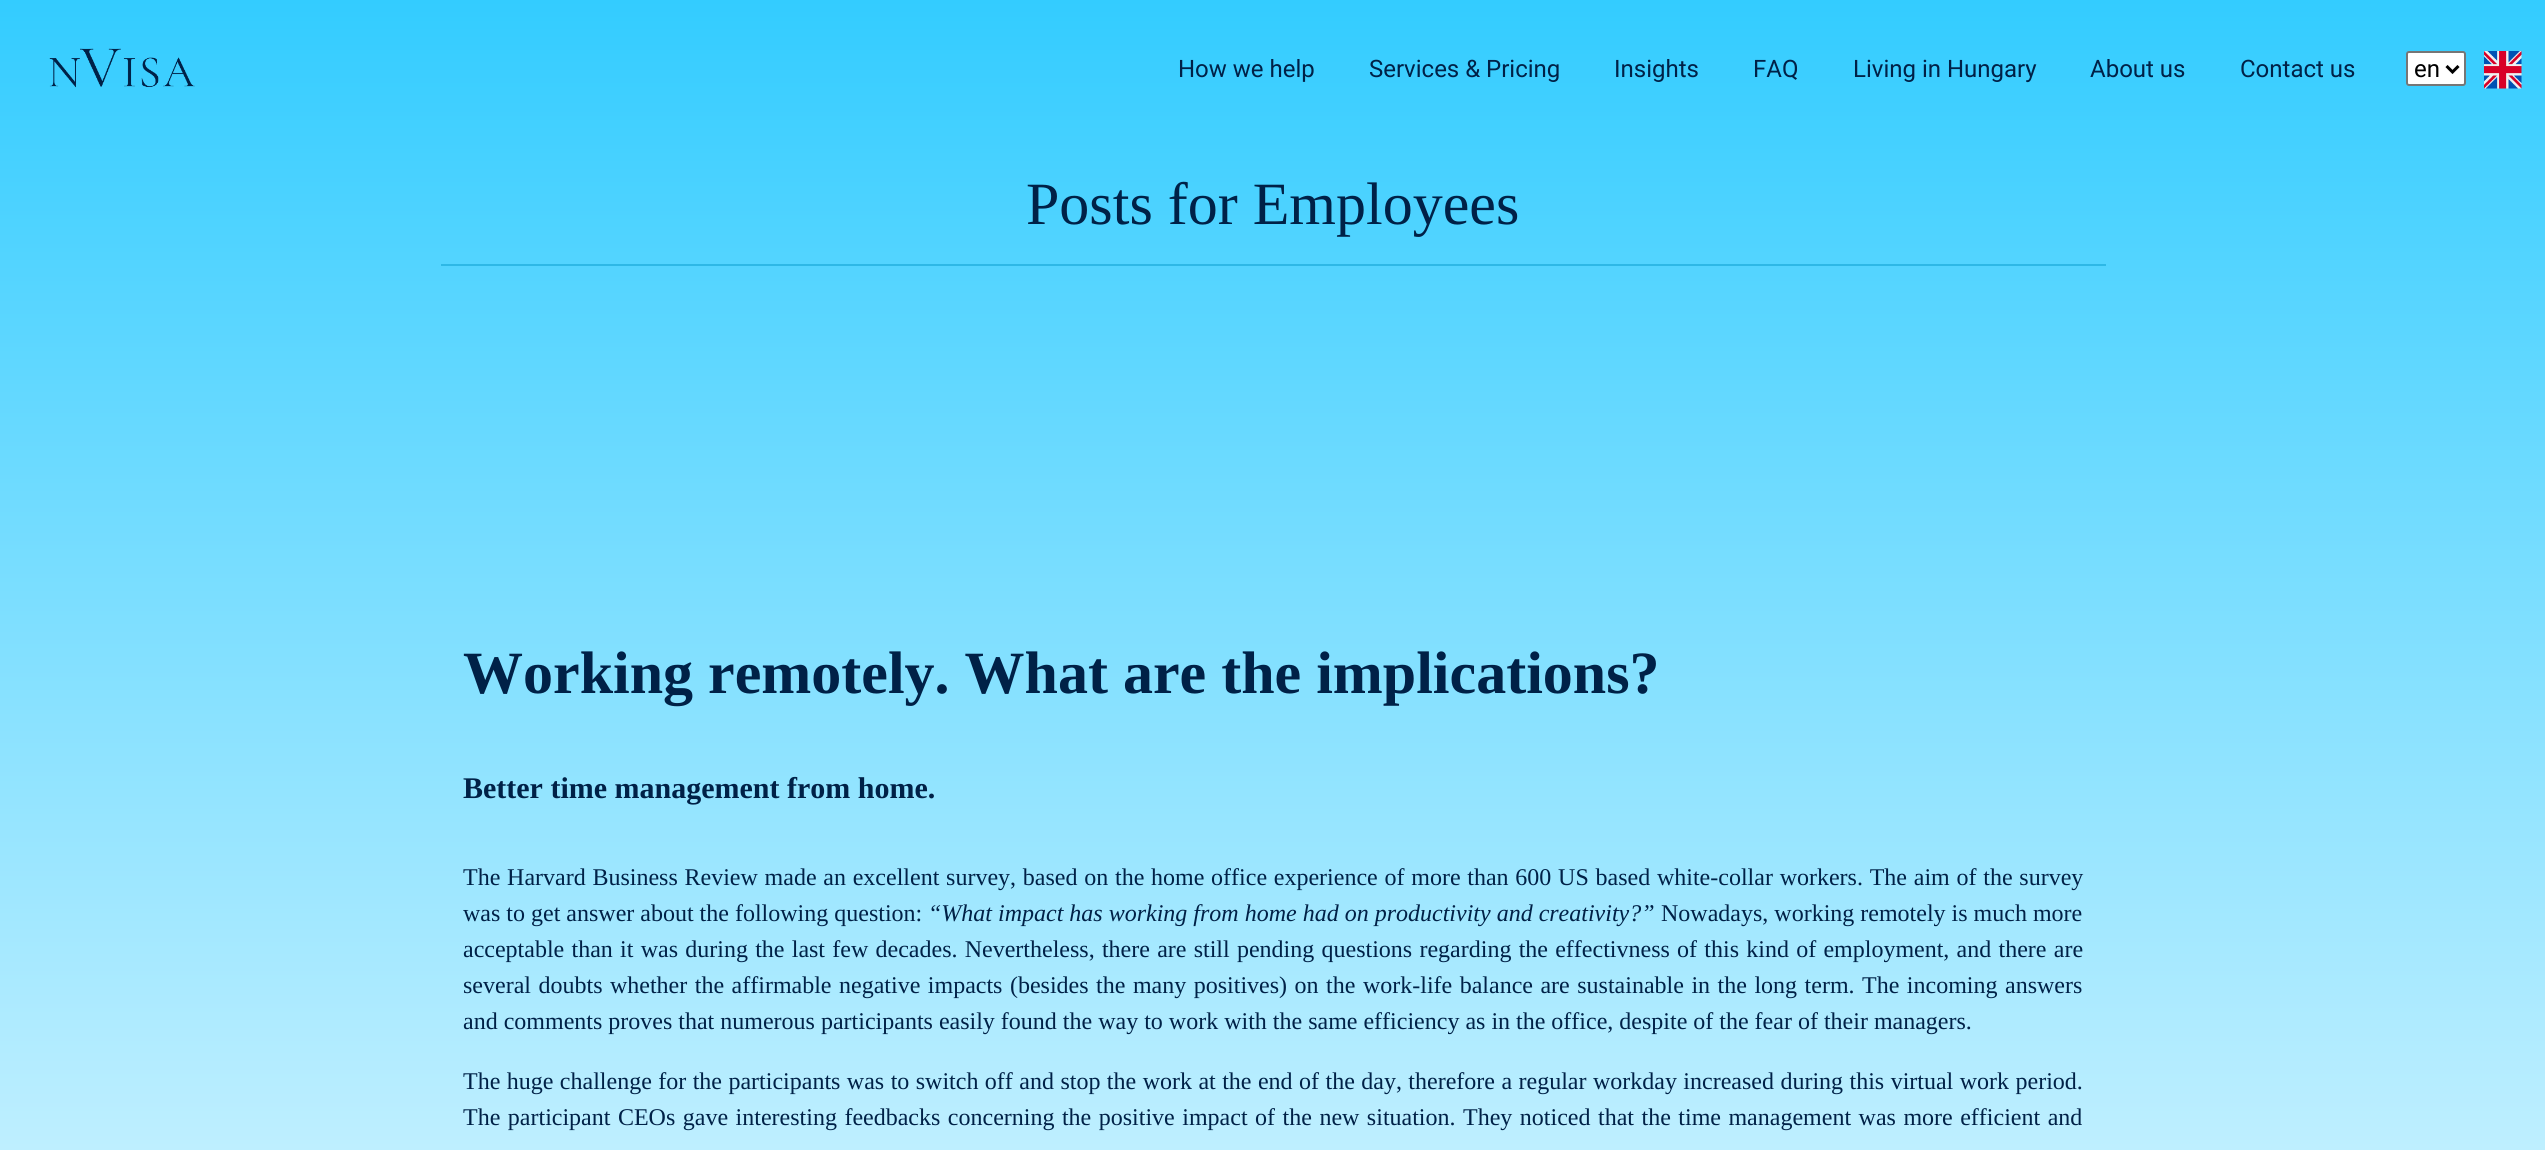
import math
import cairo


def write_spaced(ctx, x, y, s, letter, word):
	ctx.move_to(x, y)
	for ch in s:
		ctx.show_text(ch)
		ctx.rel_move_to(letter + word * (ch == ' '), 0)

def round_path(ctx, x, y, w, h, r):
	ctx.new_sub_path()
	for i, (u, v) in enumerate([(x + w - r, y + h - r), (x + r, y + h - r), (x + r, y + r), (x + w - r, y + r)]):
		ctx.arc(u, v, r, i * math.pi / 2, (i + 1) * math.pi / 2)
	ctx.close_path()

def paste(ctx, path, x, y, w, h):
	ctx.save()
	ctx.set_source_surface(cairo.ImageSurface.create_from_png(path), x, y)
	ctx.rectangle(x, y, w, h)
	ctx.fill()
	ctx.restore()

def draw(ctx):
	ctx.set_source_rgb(1, 1, 1)
	ctx.paint()
	gradient = cairo.LinearGradient(1273, 0, 1273, 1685)
	gradient.add_color_stop_rgba(0, 0.2, 0.8, 1, 1)
	gradient.add_color_stop_rgba(1, 1, 1, 1, 1)
	ctx.set_source(gradient)
	ctx.rectangle(0, 0, 2545, 1150)
	ctx.fill()
	paste(ctx, 'media/1.png', 49, 48, 146, 40)
	ctx.select_font_face('Roboto')
	ctx.set_font_size(24)
	ctx.set_source_rgb(0, 0.129, 0.278)
	for x, y, s in [
		(1178, 77, 'How we help'),
		(1369, 77, 'Services & Pricing'),
		(1614, 77, 'Insights'),
		(1753, 77, 'FAQ'),
		(1853, 77, 'Living in Hungary'),
		(2090, 77, 'About us'),
		(2240, 77, 'Contact us'),
	]:
		ctx.move_to(x, y)
		ctx.show_text(s)
	ctx.set_source_rgb(1, 1, 1)
	round_path(ctx, 2407, 52, 58, 33, 2)
	ctx.fill_preserve()
	ctx.set_source_rgb(0.463, 0.463, 0.463)
	ctx.stroke()
	ctx.new_path()
	ctx.move_to(2446.5, 66)
	ctx.line_to(2452.5, 72)
	ctx.line_to(2458.5, 66)
	ctx.set_source_rgb(0, 0, 0)
	ctx.set_line_width(3)
	ctx.stroke()
	ctx.move_to(2414, 77)
	ctx.show_text('en')
	paste(ctx, 'media/2.png', 2484, 51, 38, 38)
	ctx.select_font_face('Liberation Serif')
	ctx.set_font_size(60)
	ctx.set_source_rgb(0, 0.129, 0.278)
	ctx.move_to(1026, 224)
	ctx.show_text('Posts for Employees')
	ctx.set_source_rgb(0.18, 0.722, 0.902)
	ctx.rectangle(441, 264, 1665, 2)
	ctx.fill()
	ctx.select_font_face('Liberation Serif', cairo.FONT_SLANT_NORMAL, cairo.FONT_WEIGHT_BOLD)
	ctx.set_source_rgb(0, 0.129, 0.278)
	ctx.move_to(463, 693)
	ctx.show_text('Working remotely. What are the implications?')
	ctx.set_font_size(30)
	ctx.move_to(463, 798)
	ctx.show_text('Better time management from home.')
	ctx.select_font_face('Liberation Serif')
	ctx.set_font_size(24)
	write_spaced(ctx, 463, 885, 'The Harvard Business Review made an excellent survey, based on the home office experience of more than 600 US based white-collar workers. The aim of the survey', 0, 0.75)
	ctx.move_to(463, 921)
	ctx.show_text('was to get answer about the following question:')
	ctx.select_font_face('Liberation Serif', cairo.FONT_SLANT_ITALIC)
	ctx.move_to(928, 921)
	ctx.show_text('“What impact has working from home had on productivity and creativity?”')
	ctx.select_font_face('Liberation Serif')
	ctx.move_to(1661, 921)
	ctx.show_text('Nowadays, working remotely is much more')
	write_spaced(ctx, 463, 957, 'acceptable than it was during the last few decades. Nevertheless, there are still pending questions regarding the effectivness of this kind of employment, and there are', 0, 1.25)
	write_spaced(ctx, 463, 993, 'several doubts whether the affirmable negative impacts (besides the many positives) on the work-life balance are sustainable in the long term. The incoming answers', 0, 1.5)
	ctx.move_to(463, 1029)
	ctx.show_text('and comments proves that numerous participants easily found the way to work with the same efficiency as in the office, despite of the fear of their managers.')
	write_spaced(ctx, 463, 1089, 'The huge challenge for the participants was to switch off and stop the work at the end of the day, therefore a regular workday increased during this virtual work period.', 0, 0.45)
	write_spaced(ctx, 463, 1125, 'The participant CEOs gave interesting feedbacks concerning the positive impact of the new situation. They noticed that the time management was more efficient and', 0, 1.5)


surface = cairo.ImageSurface(cairo.FORMAT_RGB24, 2545, 1150)
ctx = cairo.Context(surface)
options = cairo.FontOptions()
options.set_hint_metrics(cairo.HINT_METRICS_OFF)
options.set_hint_style(cairo.HINT_STYLE_NONE)
ctx.set_font_options(options)
ctx.set_miter_limit(4)
draw(ctx)
surface.write_to_png('image.png')
